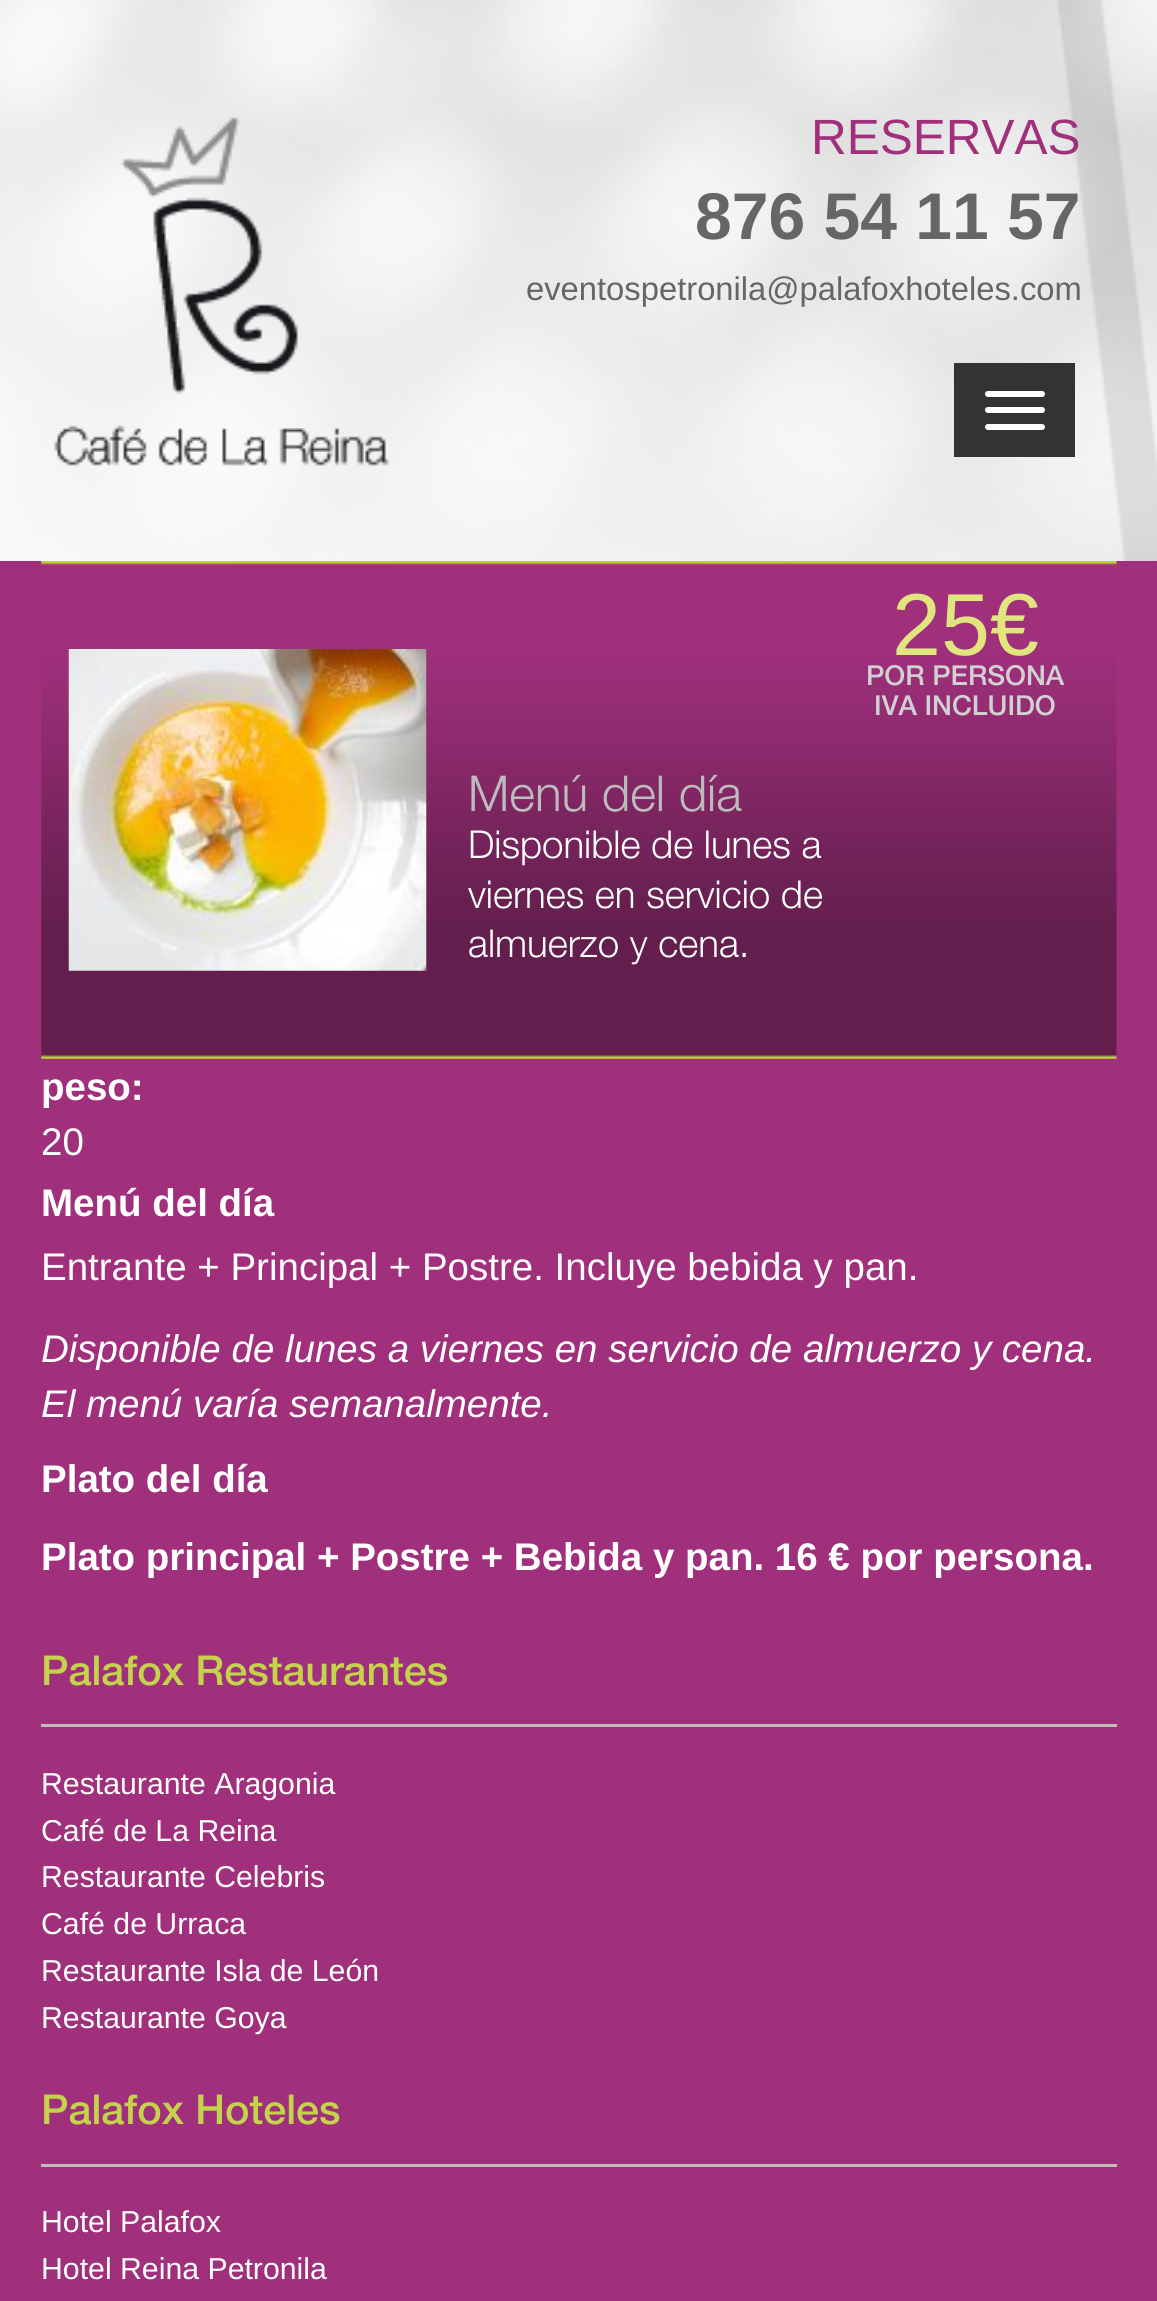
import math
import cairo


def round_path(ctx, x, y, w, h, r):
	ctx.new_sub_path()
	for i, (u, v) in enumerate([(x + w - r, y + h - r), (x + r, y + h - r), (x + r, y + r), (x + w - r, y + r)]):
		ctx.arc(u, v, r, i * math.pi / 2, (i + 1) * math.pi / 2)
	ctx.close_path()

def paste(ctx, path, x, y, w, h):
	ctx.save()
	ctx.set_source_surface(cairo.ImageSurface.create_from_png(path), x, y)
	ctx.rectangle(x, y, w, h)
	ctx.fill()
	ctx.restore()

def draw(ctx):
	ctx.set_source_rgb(1, 1, 1)
	ctx.paint()
	paste(ctx, 'media/1.png', 0, 0, 1157, 561)
	paste(ctx, 'media/2.png', 54, 117, 335, 349)
	ctx.select_font_face('Liberation Sans')
	ctx.set_font_size(49.5)
	ctx.set_source_rgb(0.627, 0.188, 0.486)
	ctx.move_to(811, 154)
	ctx.show_text('RESERVAS')
	ctx.select_font_face('Liberation Sans', cairo.FONT_SLANT_NORMAL, cairo.FONT_WEIGHT_BOLD)
	ctx.set_font_size(66)
	ctx.set_source_rgb(0.4, 0.4, 0.4)
	ctx.move_to(695, 239)
	ctx.show_text('876 54 11 57')
	ctx.select_font_face('Liberation Sans')
	ctx.set_font_size(32.75)
	ctx.move_to(526, 300)
	ctx.show_text('eventospetronila@palafoxhoteles.com')
	ctx.set_source_rgb(0.2, 0.2, 0.2)
	ctx.rectangle(954, 363, 121, 94)
	ctx.fill()
	ctx.set_source_rgb(1, 1, 1)
	round_path(ctx, 985, 391, 60, 6, 3)
	ctx.fill()
	round_path(ctx, 985, 407, 60, 6, 3)
	ctx.fill()
	round_path(ctx, 985, 424, 60, 6, 3)
	ctx.fill()
	ctx.set_source_rgb(0.627, 0.188, 0.486)
	ctx.rectangle(0, 561, 1157, 1740)
	ctx.fill()
	paste(ctx, 'media/3.png', 41, 561, 1076, 498)
	paste(ctx, 'media/4.png', 68, 649, 359, 322)
	ctx.select_font_face('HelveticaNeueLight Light')
	ctx.set_font_size(49.5)
	ctx.set_source_rgb(0.737, 0.737, 0.737)
	ctx.move_to(468, 811)
	ctx.show_text('Menú del día')
	ctx.set_font_size(38.5)
	ctx.set_source_rgb(1, 1, 1)
	for x, y, s in [
		(468, 858, 'Disponible de lunes a'),
		(468, 908, 'viernes en servicio de'),
		(468, 957, 'almuerzo y cena.'),
	]:
		ctx.move_to(x, y)
		ctx.show_text(s)
	ctx.select_font_face('Liberation Sans')
	ctx.set_font_size(88)
	ctx.set_source_rgb(0.878, 0.902, 0.49)
	ctx.move_to(892, 655)
	ctx.show_text('25€')
	ctx.select_font_face('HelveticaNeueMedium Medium')
	ctx.set_font_size(27.5)
	ctx.set_source_rgb(0.82, 0.82, 0.827)
	ctx.move_to(866, 685)
	ctx.show_text('POR PERSONA')
	ctx.move_to(874, 715)
	ctx.show_text('IVA INCLUIDO')
	ctx.select_font_face('Liberation Sans', cairo.FONT_SLANT_NORMAL, cairo.FONT_WEIGHT_BOLD)
	ctx.set_font_size(38.5)
	ctx.set_source_rgb(1, 1, 1)
	ctx.move_to(41, 1100)
	ctx.show_text('peso:')
	ctx.select_font_face('Liberation Sans')
	ctx.move_to(41, 1155)
	ctx.show_text('20')
	ctx.select_font_face('Liberation Sans', cairo.FONT_SLANT_NORMAL, cairo.FONT_WEIGHT_BOLD)
	ctx.move_to(41, 1216)
	ctx.show_text('Menú del día')
	ctx.select_font_face('Liberation Sans')
	ctx.move_to(41, 1280)
	ctx.show_text('Entrante + Principal + Postre. Incluye bebida y pan.')
	ctx.select_font_face('Liberation Sans', cairo.FONT_SLANT_ITALIC)
	ctx.move_to(41, 1362)
	ctx.show_text('Disponible de lunes a viernes en servicio de almuerzo y cena.')
	ctx.move_to(41, 1417)
	ctx.show_text('El menú varía semanalmente.')
	ctx.select_font_face('Liberation Sans', cairo.FONT_SLANT_NORMAL, cairo.FONT_WEIGHT_BOLD)
	ctx.move_to(41, 1492)
	ctx.show_text('Plato del día')
	ctx.move_to(41, 1570)
	ctx.show_text('Plato principal + Postre + Bebida y pan. 16 € por persona.')
	ctx.set_source_rgb(0.737, 0.737, 0.737)
	ctx.rectangle(41, 1724, 1076, 3)
	ctx.fill()
	ctx.select_font_face('HelveticaNeueMedium Medium')
	ctx.set_font_size(41.25)
	ctx.set_source_rgb(0.769, 0.824, 0.298)
	ctx.move_to(41, 1685)
	ctx.show_text('Palafox Restaurantes')
	ctx.select_font_face('Liberation Sans')
	ctx.set_font_size(30.25)
	ctx.set_source_rgb(1, 1, 1)
	for x, y, s in [
		(41, 1794, 'Restaurante Aragonia'),
		(41, 1841, 'Café de La Reina'),
		(41, 1887, 'Restaurante Celebris'),
		(41, 1934, 'Café de Urraca'),
		(41, 1981, 'Restaurante Isla de León'),
		(41, 2028, 'Restaurante Goya'),
	]:
		ctx.move_to(x, y)
		ctx.show_text(s)
	ctx.set_source_rgb(0.737, 0.737, 0.737)
	ctx.rectangle(41, 2164, 1076, 3)
	ctx.fill()
	ctx.select_font_face('HelveticaNeueMedium Medium')
	ctx.set_font_size(41.25)
	ctx.set_source_rgb(0.769, 0.824, 0.298)
	ctx.move_to(41, 2124)
	ctx.show_text('Palafox Hoteles')
	ctx.select_font_face('Liberation Sans')
	ctx.set_font_size(30.25)
	ctx.set_source_rgb(1, 1, 1)
	ctx.move_to(41, 2232)
	ctx.show_text('Hotel Palafox')
	ctx.move_to(41, 2279)
	ctx.show_text('Hotel Reina Petronila')


surface = cairo.ImageSurface(cairo.FORMAT_RGB24, 1157, 2301)
ctx = cairo.Context(surface)
options = cairo.FontOptions()
options.set_hint_metrics(cairo.HINT_METRICS_OFF)
options.set_hint_style(cairo.HINT_STYLE_NONE)
ctx.set_font_options(options)
ctx.set_miter_limit(4)
draw(ctx)
surface.write_to_png('image.png')
